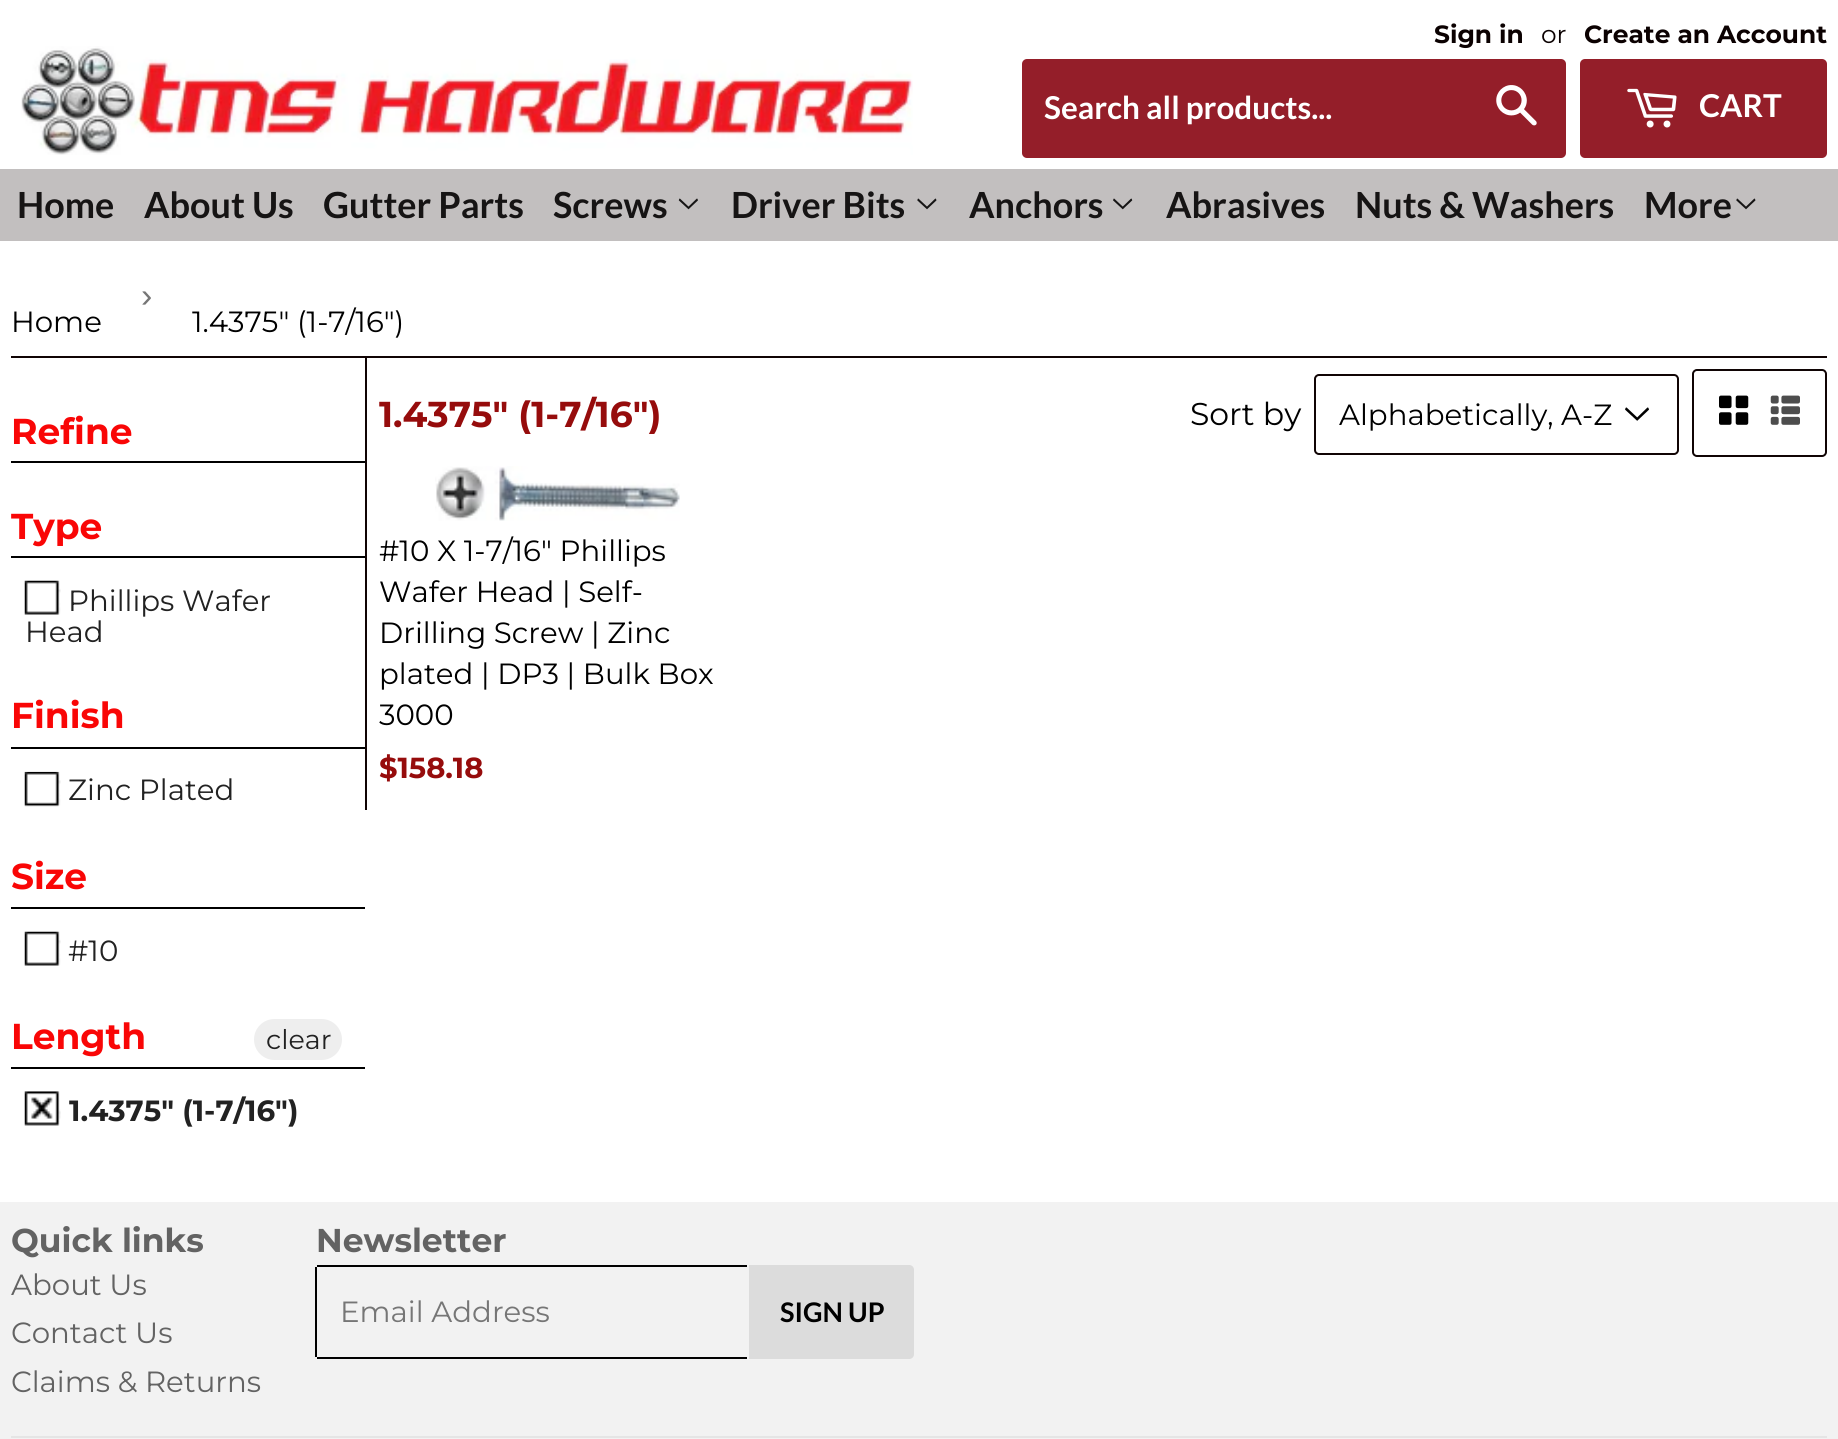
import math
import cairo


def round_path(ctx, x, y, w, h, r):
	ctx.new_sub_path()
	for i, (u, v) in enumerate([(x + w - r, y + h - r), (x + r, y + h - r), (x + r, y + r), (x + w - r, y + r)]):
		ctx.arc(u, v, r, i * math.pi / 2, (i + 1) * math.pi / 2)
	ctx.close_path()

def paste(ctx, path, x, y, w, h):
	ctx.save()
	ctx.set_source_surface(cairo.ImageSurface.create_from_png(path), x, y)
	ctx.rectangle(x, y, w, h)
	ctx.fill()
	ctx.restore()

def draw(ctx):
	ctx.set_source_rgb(1, 1, 1)
	ctx.paint()
	paste(ctx, 'media/1.png', 21, 46, 892, 109)
	ctx.select_font_face('Montserrat', cairo.FONT_SLANT_NORMAL, cairo.FONT_WEIGHT_BOLD)
	ctx.set_font_size(24.9)
	ctx.set_source_rgb(0.043, 0.004, 0.004)
	ctx.move_to(1434, 43)
	ctx.show_text('Sign in')
	ctx.select_font_face('Montserrat')
	ctx.move_to(1541, 43)
	ctx.show_text('or')
	ctx.select_font_face('Montserrat', cairo.FONT_SLANT_NORMAL, cairo.FONT_WEIGHT_BOLD)
	ctx.move_to(1584, 43)
	ctx.show_text('Create an Account')
	ctx.set_source_rgb(0.58, 0.118, 0.161)
	round_path(ctx, 1022, 59, 544, 99, 5)
	ctx.fill()
	ctx.select_font_face('Lato', cairo.FONT_SLANT_NORMAL, cairo.FONT_WEIGHT_BOLD)
	ctx.set_font_size(31.5)
	ctx.set_source_rgb(1, 1, 1)
	ctx.move_to(1044, 119)
	ctx.show_text('Search all products...')
	paste(ctx, 'media/2.png', 1496, 85, 41, 41)
	ctx.set_source_rgb(0.58, 0.118, 0.161)
	round_path(ctx, 1580, 59, 247, 99, 5)
	ctx.fill()
	paste(ctx, 'media/3.png', 1627, 88, 50, 40)
	ctx.set_source_rgb(1, 1, 1)
	ctx.move_to(1699, 117)
	ctx.show_text('CART')
	ctx.set_source_rgb(0.761, 0.749, 0.749)
	ctx.rectangle(0, 169, 1838, 72)
	ctx.fill()
	ctx.set_font_size(36)
	ctx.set_source_rgb(0.086, 0.082, 0.082)
	for x, y, s in [
		(17, 218, 'Home'),
		(144, 218, 'About Us'),
		(323, 218, 'Gutter Parts'),
		(553, 218, 'Screws'),
	]:
		ctx.move_to(x, y)
		ctx.show_text(s)
	paste(ctx, 'media/4.png', 678, 198, 20, 12)
	ctx.move_to(731, 218)
	ctx.show_text('Driver Bits')
	paste(ctx, 'media/5.png', 917, 198, 20, 12)
	ctx.move_to(969, 218)
	ctx.show_text('Anchors')
	paste(ctx, 'media/6.png', 1113, 198, 20, 12)
	for x, y, s in [
		(1166, 218, 'Abrasives'),
		(1355, 218, 'Nuts & Washers'),
		(1644, 218, 'More'),
	]:
		ctx.move_to(x, y)
		ctx.show_text(s)
	paste(ctx, 'media/5.png', 1736, 198, 20, 12)
	ctx.set_source_rgb(0.063, 0.016, 0.016)
	ctx.rectangle(11, 356, 1816, 2)
	ctx.fill()
	ctx.select_font_face('Liberation Sans')
	ctx.set_font_size(34)
	ctx.set_source_rgb(0.463, 0.463, 0.463)
	ctx.move_to(141, 307)
	ctx.show_text('›')
	ctx.select_font_face('Montserrat')
	ctx.set_font_size(29.25)
	ctx.set_source_rgb(0, 0, 0)
	ctx.move_to(11, 332)
	ctx.show_text('Home')
	ctx.move_to(192, 332)
	ctx.show_text('1.4375" (1-7/16")')
	ctx.rectangle(11, 461, 354, 2)
	ctx.fill()
	ctx.select_font_face('Montserrat', cairo.FONT_SLANT_NORMAL, cairo.FONT_WEIGHT_BOLD)
	ctx.set_font_size(36)
	ctx.set_source_rgb(0.976, 0.024, 0.024)
	ctx.move_to(11, 444)
	ctx.show_text('Refine')
	ctx.set_source_rgb(0, 0, 0)
	ctx.rectangle(11, 556, 354, 2)
	ctx.fill()
	ctx.set_source_rgb(0.976, 0.024, 0.024)
	ctx.move_to(11, 539)
	ctx.show_text('Type')
	paste(ctx, 'media/7.png', 24, 580, 37, 35)
	ctx.select_font_face('Montserrat')
	ctx.set_font_size(29.25)
	ctx.set_source_rgb(0.133, 0.133, 0.133)
	ctx.move_to(68, 611)
	ctx.show_text('Phillips Wafer')
	ctx.move_to(25, 642)
	ctx.show_text('Head')
	ctx.set_source_rgb(0, 0, 0)
	ctx.rectangle(11, 747, 354, 2)
	ctx.fill()
	ctx.select_font_face('Montserrat', cairo.FONT_SLANT_NORMAL, cairo.FONT_WEIGHT_BOLD)
	ctx.set_font_size(36)
	ctx.set_source_rgb(0.976, 0.024, 0.024)
	ctx.move_to(11, 728)
	ctx.show_text('Finish')
	paste(ctx, 'media/8.png', 24, 771, 37, 36)
	ctx.select_font_face('Montserrat')
	ctx.set_font_size(29.25)
	ctx.set_source_rgb(0.133, 0.133, 0.133)
	ctx.move_to(68, 800)
	ctx.show_text('Zinc Plated')
	ctx.set_source_rgb(0, 0, 0)
	ctx.rectangle(11, 907, 354, 2)
	ctx.fill()
	ctx.select_font_face('Montserrat', cairo.FONT_SLANT_NORMAL, cairo.FONT_WEIGHT_BOLD)
	ctx.set_font_size(36)
	ctx.set_source_rgb(0.976, 0.024, 0.024)
	ctx.move_to(11, 889)
	ctx.show_text('Size')
	paste(ctx, 'media/7.png', 24, 931, 37, 35)
	ctx.select_font_face('Montserrat')
	ctx.set_font_size(29.25)
	ctx.set_source_rgb(0.133, 0.133, 0.133)
	ctx.move_to(68, 961)
	ctx.show_text('#10')
	ctx.set_source_rgb(0, 0, 0)
	ctx.rectangle(11, 1067, 354, 2)
	ctx.fill()
	ctx.select_font_face('Montserrat', cairo.FONT_SLANT_NORMAL, cairo.FONT_WEIGHT_BOLD)
	ctx.set_font_size(36)
	ctx.set_source_rgb(0.976, 0.024, 0.024)
	ctx.move_to(11, 1049)
	ctx.show_text('Length')
	ctx.set_source_rgb(0.933, 0.933, 0.933)
	round_path(ctx, 254, 1019, 88, 41, 20.5)
	ctx.fill()
	ctx.select_font_face('Montserrat')
	ctx.set_font_size(27)
	ctx.set_source_rgb(0.133, 0.133, 0.133)
	ctx.move_to(266, 1049)
	ctx.show_text('clear')
	paste(ctx, 'media/9.png', 24, 1091, 37, 35)
	ctx.select_font_face('Montserrat', cairo.FONT_SLANT_NORMAL, cairo.FONT_WEIGHT_BOLD)
	ctx.set_font_size(29.25)
	ctx.move_to(69, 1121)
	ctx.show_text('1.4375" (1-7/16")')
	ctx.set_source_rgb(0.063, 0.016, 0.016)
	ctx.rectangle(365, 358, 2, 452)
	ctx.fill()
	ctx.set_font_size(36)
	ctx.set_source_rgb(0.588, 0.047, 0.047)
	ctx.move_to(379, 427)
	ctx.show_text('1.4375" (1-7/16")')
	ctx.select_font_face('Montserrat')
	ctx.set_font_size(31.5)
	ctx.set_source_rgb(0, 0, 0)
	ctx.move_to(1190, 425)
	ctx.show_text('Sort by')
	paste(ctx, 'media/10.png', 1625, 407, 24, 14)
	round_path(ctx, 1315, 375, 363, 79, 4)
	ctx.set_source_rgb(0.063, 0.016, 0.016)
	ctx.stroke()
	ctx.set_font_size(29.25)
	ctx.set_source_rgb(0, 0, 0)
	ctx.move_to(1339, 425)
	ctx.show_text('Alphabetically, A-Z')
	round_path(ctx, 1693, 370, 133, 86, 4)
	ctx.set_source_rgb(0.063, 0.016, 0.016)
	ctx.stroke()
	paste(ctx, 'media/11.png', 1719, 395, 30, 30)
	paste(ctx, 'media/12.png', 1770, 395, 30, 30)
	paste(ctx, 'media/13.png', 435, 466, 245, 55)
	ctx.set_source_rgb(0, 0, 0)
	for x, y, s in [
		(379, 561, '#10 X 1-7/16" Phillips'),
		(379, 602, 'Wafer Head | Self-'),
		(379, 643, 'Drilling Screw | Zinc'),
		(379, 684, 'plated | DP3 | Bulk Box'),
		(379, 725, '3000'),
	]:
		ctx.move_to(x, y)
		ctx.show_text(s)
	ctx.select_font_face('Montserrat', cairo.FONT_SLANT_NORMAL, cairo.FONT_WEIGHT_BOLD)
	ctx.set_font_size(29)
	ctx.set_source_rgb(0.588, 0.047, 0.047)
	ctx.move_to(379, 778)
	ctx.show_text('$158.18')
	ctx.set_source_rgb(0.949, 0.949, 0.949)
	ctx.rectangle(0, 1202, 1838, 237)
	ctx.fill()
	ctx.set_font_size(33)
	ctx.set_source_rgb(0.388, 0.388, 0.388)
	ctx.move_to(11, 1252)
	ctx.show_text('Quick links')
	ctx.select_font_face('Montserrat')
	ctx.set_font_size(29.25)
	for x, y, s in [
		(11, 1295, 'About Us'),
		(11, 1343, 'Contact Us'),
		(11, 1392, 'Claims & Returns'),
	]:
		ctx.move_to(x, y)
		ctx.show_text(s)
	ctx.select_font_face('Montserrat', cairo.FONT_SLANT_NORMAL, cairo.FONT_WEIGHT_BOLD)
	ctx.set_font_size(33)
	ctx.move_to(316, 1252)
	ctx.show_text('Newsletter')
	ctx.set_source_rgb(0, 0, 0)
	ctx.rectangle(317, 1265, 430, 2)
	ctx.rectangle(317, 1357, 430, 2)
	ctx.rectangle(315, 1267, 2, 90)
	ctx.fill()
	ctx.select_font_face('Montserrat')
	ctx.set_font_size(29.25)
	ctx.set_source_rgb(0.463, 0.463, 0.463)
	ctx.move_to(340, 1322)
	ctx.show_text('Email Address')
	ctx.set_source_rgb(0.863, 0.863, 0.863)
	ctx.new_path()
	ctx.move_to(749, 1265)
	ctx.line_to(909, 1265)
	ctx.curve_to(912, 1265, 914, 1267, 914, 1270)
	ctx.line_to(914, 1354)
	ctx.curve_to(914, 1357, 912, 1359, 909, 1359)
	ctx.line_to(749, 1359)
	ctx.close_path()
	ctx.fill()
	ctx.select_font_face('Lato', cairo.FONT_SLANT_NORMAL, cairo.FONT_WEIGHT_BOLD)
	ctx.set_font_size(27)
	ctx.set_source_rgb(0, 0, 0)
	ctx.move_to(780, 1322)
	ctx.show_text('SIGN UP')
	ctx.set_source_rgb(0.898, 0.898, 0.898)
	ctx.rectangle(11, 1436, 1816, 2)
	ctx.fill()


surface = cairo.ImageSurface(cairo.FORMAT_RGB24, 1838, 1439)
ctx = cairo.Context(surface)
options = cairo.FontOptions()
options.set_hint_metrics(cairo.HINT_METRICS_OFF)
options.set_hint_style(cairo.HINT_STYLE_NONE)
ctx.set_font_options(options)
ctx.set_miter_limit(4)
draw(ctx)
surface.write_to_png('image.png')
